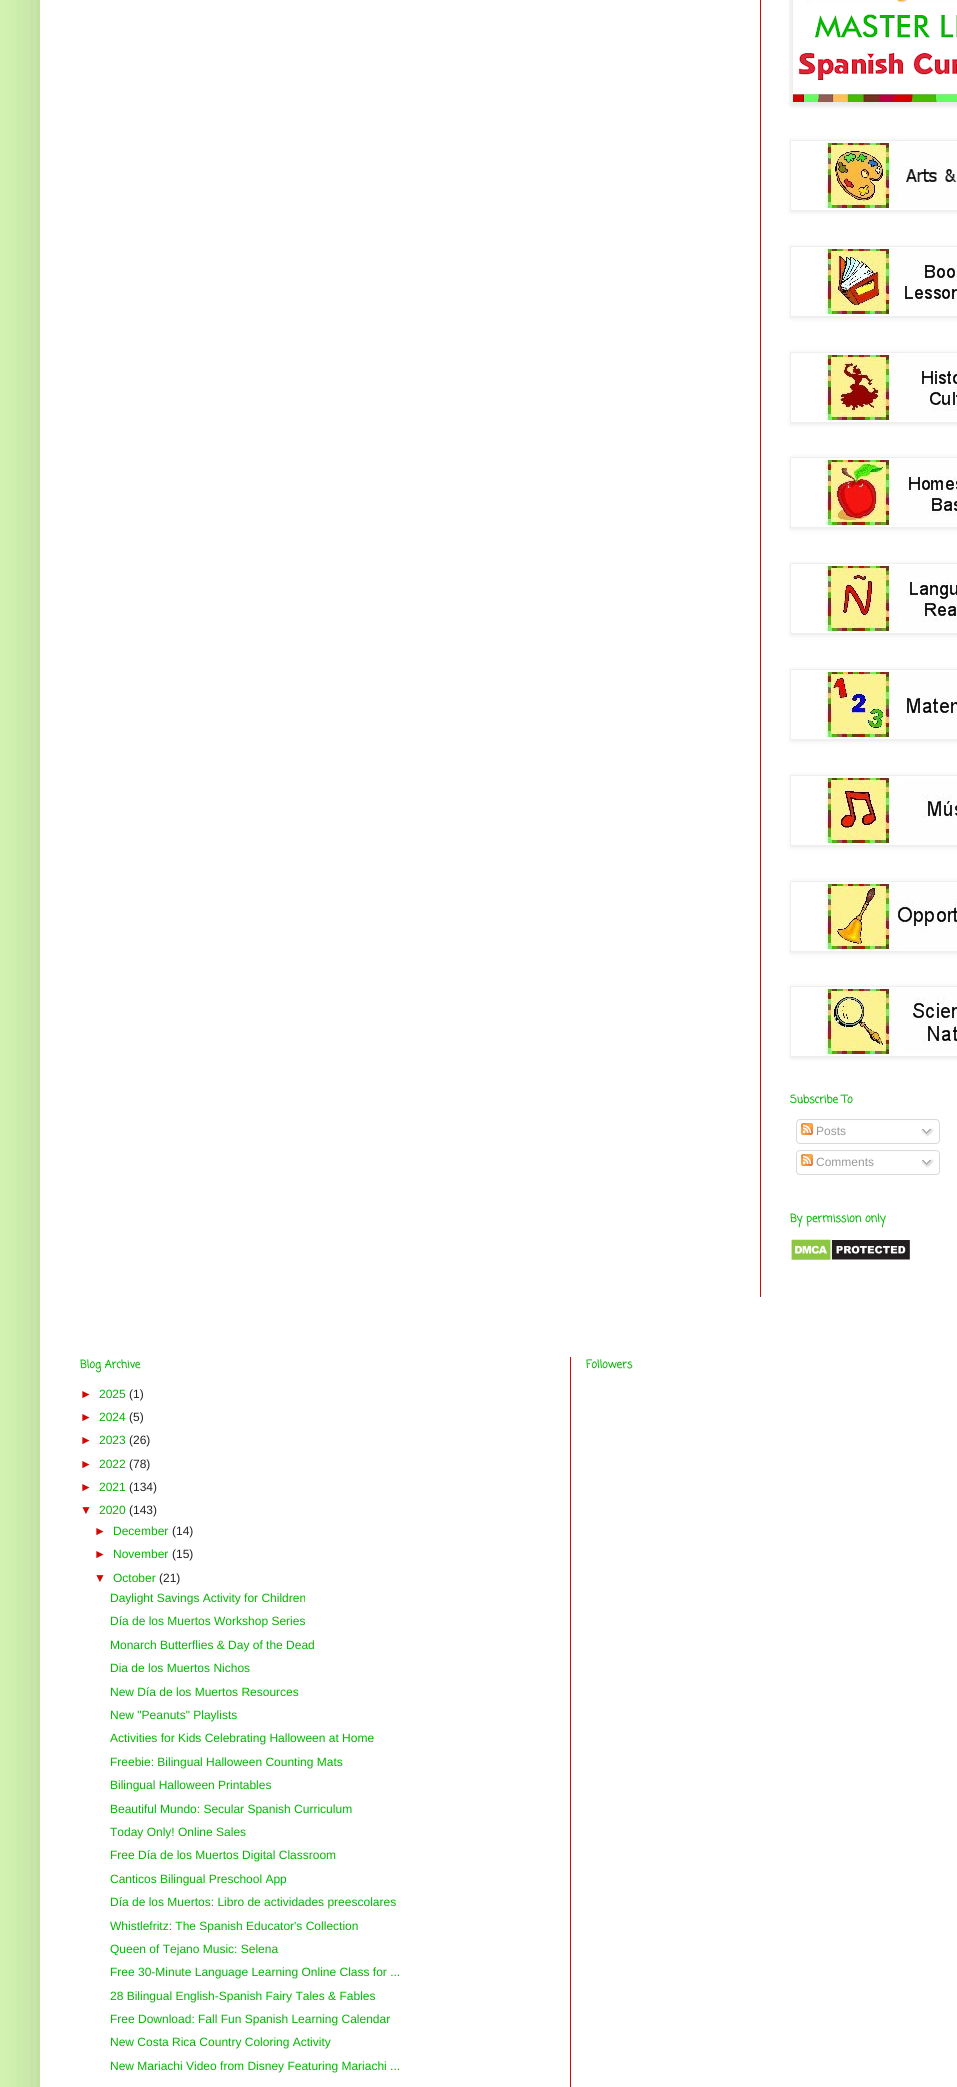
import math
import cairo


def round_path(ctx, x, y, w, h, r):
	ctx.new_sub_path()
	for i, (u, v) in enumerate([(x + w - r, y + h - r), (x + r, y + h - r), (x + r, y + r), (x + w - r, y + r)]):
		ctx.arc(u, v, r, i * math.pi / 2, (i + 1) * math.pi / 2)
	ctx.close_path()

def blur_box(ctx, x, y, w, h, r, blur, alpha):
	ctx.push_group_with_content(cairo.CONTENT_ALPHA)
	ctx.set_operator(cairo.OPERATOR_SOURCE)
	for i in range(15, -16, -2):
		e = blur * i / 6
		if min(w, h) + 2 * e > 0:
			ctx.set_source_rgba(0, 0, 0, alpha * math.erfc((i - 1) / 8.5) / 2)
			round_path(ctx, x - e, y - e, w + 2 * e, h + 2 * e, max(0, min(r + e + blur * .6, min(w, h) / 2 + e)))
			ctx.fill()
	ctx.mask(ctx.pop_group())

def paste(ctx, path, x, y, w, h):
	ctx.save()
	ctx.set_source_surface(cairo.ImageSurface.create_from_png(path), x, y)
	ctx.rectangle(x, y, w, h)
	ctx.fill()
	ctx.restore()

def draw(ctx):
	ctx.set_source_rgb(0.82, 0.949, 0.69)
	ctx.paint()
	ctx.set_source_rgb(0, 0, 0)
	blur_box(ctx, 40, -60, 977, 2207, 0, 20, 0.15)
	ctx.set_source_rgb(1, 1, 1)
	ctx.rectangle(40, 0, 917, 2087)
	ctx.fill()
	ctx.set_source_rgb(0.824, 0.035, 0.02)
	ctx.rectangle(760, 0, 1, 1297)
	ctx.fill()
	ctx.set_source_rgb(0, 0, 0)
	blur_box(ctx, 791, -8, 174, 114, 0, 2.5, 0.1)
	ctx.rectangle(790.5, -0.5, 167, 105)
	ctx.set_source_rgb(0.933, 0.933, 0.933)
	ctx.set_line_width(1)
	ctx.stroke()
	paste(ctx, 'media/1.png', 793, 0, 164, 102)
	ctx.save()
	ctx.set_fill_rule(cairo.FILL_RULE_EVEN_ODD)
	ctx.new_path()
	ctx.move_to(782, 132)
	ctx.line_to(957, 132)
	ctx.line_to(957, 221)
	ctx.line_to(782, 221)
	ctx.close_path()
	ctx.move_to(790, 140)
	ctx.line_to(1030, 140)
	ctx.line_to(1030, 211)
	ctx.line_to(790, 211)
	ctx.close_path()
	ctx.clip()
	ctx.set_source_rgb(0, 0, 0)
	blur_box(ctx, 791, 141, 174, 71, 0, 2.5, 0.1)
	ctx.restore()
	ctx.rectangle(790.5, 140.5, 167, 70)
	ctx.stroke()
	paste(ctx, 'media/2.png', 824, 143, 133, 65)
	ctx.save()
	ctx.set_fill_rule(cairo.FILL_RULE_EVEN_ODD)
	ctx.new_path()
	ctx.move_to(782, 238)
	ctx.line_to(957, 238)
	ctx.line_to(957, 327)
	ctx.line_to(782, 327)
	ctx.close_path()
	ctx.move_to(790, 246)
	ctx.line_to(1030, 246)
	ctx.line_to(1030, 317)
	ctx.line_to(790, 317)
	ctx.close_path()
	ctx.clip()
	ctx.set_source_rgb(0, 0, 0)
	blur_box(ctx, 791, 247, 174, 71, 0, 2.5, 0.1)
	ctx.restore()
	ctx.rectangle(790.5, 246.5, 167, 70)
	ctx.stroke()
	paste(ctx, 'media/3.png', 824, 249, 133, 65)
	ctx.save()
	ctx.set_fill_rule(cairo.FILL_RULE_EVEN_ODD)
	ctx.new_path()
	ctx.move_to(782, 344)
	ctx.line_to(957, 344)
	ctx.line_to(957, 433)
	ctx.line_to(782, 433)
	ctx.close_path()
	ctx.move_to(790, 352)
	ctx.line_to(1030, 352)
	ctx.line_to(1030, 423)
	ctx.line_to(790, 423)
	ctx.close_path()
	ctx.clip()
	ctx.set_source_rgb(0, 0, 0)
	blur_box(ctx, 791, 353, 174, 71, 0, 2.5, 0.1)
	ctx.restore()
	ctx.rectangle(790.5, 352.5, 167, 70)
	ctx.stroke()
	paste(ctx, 'media/4.png', 824, 355, 133, 65)
	ctx.save()
	ctx.set_fill_rule(cairo.FILL_RULE_EVEN_ODD)
	ctx.new_path()
	ctx.move_to(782, 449)
	ctx.line_to(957, 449)
	ctx.line_to(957, 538)
	ctx.line_to(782, 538)
	ctx.close_path()
	ctx.move_to(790, 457)
	ctx.line_to(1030, 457)
	ctx.line_to(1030, 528)
	ctx.line_to(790, 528)
	ctx.close_path()
	ctx.clip()
	ctx.set_source_rgb(0, 0, 0)
	blur_box(ctx, 791, 458, 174, 71, 0, 2.5, 0.1)
	ctx.restore()
	ctx.rectangle(790.5, 457.5, 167, 70)
	ctx.stroke()
	paste(ctx, 'media/5.png', 824, 460, 133, 65)
	ctx.save()
	ctx.set_fill_rule(cairo.FILL_RULE_EVEN_ODD)
	ctx.new_path()
	ctx.move_to(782, 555)
	ctx.line_to(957, 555)
	ctx.line_to(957, 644)
	ctx.line_to(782, 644)
	ctx.close_path()
	ctx.move_to(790, 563)
	ctx.line_to(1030, 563)
	ctx.line_to(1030, 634)
	ctx.line_to(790, 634)
	ctx.close_path()
	ctx.clip()
	ctx.set_source_rgb(0, 0, 0)
	blur_box(ctx, 791, 564, 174, 71, 0, 2.5, 0.1)
	ctx.restore()
	ctx.rectangle(790.5, 563.5, 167, 70)
	ctx.stroke()
	paste(ctx, 'media/6.png', 824, 566, 133, 65)
	ctx.save()
	ctx.set_fill_rule(cairo.FILL_RULE_EVEN_ODD)
	ctx.new_path()
	ctx.move_to(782, 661)
	ctx.line_to(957, 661)
	ctx.line_to(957, 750)
	ctx.line_to(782, 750)
	ctx.close_path()
	ctx.move_to(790, 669)
	ctx.line_to(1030, 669)
	ctx.line_to(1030, 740)
	ctx.line_to(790, 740)
	ctx.close_path()
	ctx.clip()
	ctx.set_source_rgb(0, 0, 0)
	blur_box(ctx, 791, 670, 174, 71, 0, 2.5, 0.1)
	ctx.restore()
	ctx.rectangle(790.5, 669.5, 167, 70)
	ctx.stroke()
	paste(ctx, 'media/7.png', 824, 672, 133, 65)
	ctx.save()
	ctx.set_fill_rule(cairo.FILL_RULE_EVEN_ODD)
	ctx.new_path()
	ctx.move_to(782, 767)
	ctx.line_to(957, 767)
	ctx.line_to(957, 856)
	ctx.line_to(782, 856)
	ctx.close_path()
	ctx.move_to(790, 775)
	ctx.line_to(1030, 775)
	ctx.line_to(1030, 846)
	ctx.line_to(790, 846)
	ctx.close_path()
	ctx.clip()
	ctx.set_source_rgb(0, 0, 0)
	blur_box(ctx, 791, 776, 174, 71, 0, 2.5, 0.1)
	ctx.restore()
	ctx.rectangle(790.5, 775.5, 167, 70)
	ctx.stroke()
	paste(ctx, 'media/8.png', 824, 778, 133, 65)
	ctx.save()
	ctx.set_fill_rule(cairo.FILL_RULE_EVEN_ODD)
	ctx.new_path()
	ctx.move_to(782, 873)
	ctx.line_to(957, 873)
	ctx.line_to(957, 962)
	ctx.line_to(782, 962)
	ctx.close_path()
	ctx.move_to(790, 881)
	ctx.line_to(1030, 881)
	ctx.line_to(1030, 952)
	ctx.line_to(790, 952)
	ctx.close_path()
	ctx.clip()
	ctx.set_source_rgb(0, 0, 0)
	blur_box(ctx, 791, 882, 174, 71, 0, 2.5, 0.1)
	ctx.restore()
	ctx.rectangle(790.5, 881.5, 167, 70)
	ctx.stroke()
	paste(ctx, 'media/9.png', 824, 884, 133, 65)
	ctx.save()
	ctx.set_fill_rule(cairo.FILL_RULE_EVEN_ODD)
	ctx.new_path()
	ctx.move_to(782, 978)
	ctx.line_to(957, 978)
	ctx.line_to(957, 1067)
	ctx.line_to(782, 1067)
	ctx.close_path()
	ctx.move_to(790, 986)
	ctx.line_to(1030, 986)
	ctx.line_to(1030, 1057)
	ctx.line_to(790, 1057)
	ctx.close_path()
	ctx.clip()
	ctx.set_source_rgb(0, 0, 0)
	blur_box(ctx, 791, 987, 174, 71, 0, 2.5, 0.1)
	ctx.restore()
	ctx.rectangle(790.5, 986.5, 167, 70)
	ctx.stroke()
	paste(ctx, 'media/10.png', 824, 989, 133, 65)
	ctx.select_font_face('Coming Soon', cairo.FONT_SLANT_NORMAL, cairo.FONT_WEIGHT_BOLD)
	ctx.set_font_size(11)
	ctx.set_source_rgb(0.008, 0.714, 0.008)
	ctx.move_to(790, 1103)
	ctx.show_text('Subscribe To')
	paste(ctx, 'media/11.png', 796, 1119, 144, 22)
	paste(ctx, 'media/12.png', 801, 1123, 12, 12)
	ctx.select_font_face('Liberation Sans')
	ctx.set_font_size(12)
	ctx.set_source_rgb(0.6, 0.6, 0.6)
	ctx.move_to(816, 1135)
	ctx.show_text('Posts')
	paste(ctx, 'media/13.png', 921, 1128, 13, 9)
	paste(ctx, 'media/14.png', 796, 1141, 144, 3)
	paste(ctx, 'media/11.png', 796, 1150, 144, 22)
	paste(ctx, 'media/12.png', 801, 1154, 12, 12)
	ctx.move_to(816, 1166)
	ctx.show_text('Comments')
	paste(ctx, 'media/13.png', 921, 1159, 13, 9)
	paste(ctx, 'media/14.png', 796, 1172, 144, 3)
	ctx.select_font_face('Coming Soon', cairo.FONT_SLANT_NORMAL, cairo.FONT_WEIGHT_BOLD)
	ctx.set_font_size(11)
	ctx.set_source_rgb(0.008, 0.714, 0.008)
	ctx.move_to(790, 1222)
	ctx.show_text('By permission only')
	paste(ctx, 'media/15.png', 791, 1239, 119, 21)
	ctx.move_to(80, 1368)
	ctx.show_text('Blog Archive')
	ctx.select_font_face('Liberation Sans')
	ctx.set_font_size(12)
	ctx.set_source_rgb(0.824, 0.035, 0.02)
	ctx.move_to(80, 1398)
	ctx.show_text('►')
	ctx.set_source_rgb(0.008, 0.714, 0.008)
	ctx.move_to(99, 1398)
	ctx.show_text('2025')
	ctx.set_source_rgb(0.133, 0.133, 0.133)
	ctx.move_to(129, 1398)
	ctx.show_text('(1)')
	ctx.set_source_rgb(0.824, 0.035, 0.02)
	ctx.move_to(80, 1421)
	ctx.show_text('►')
	ctx.set_source_rgb(0.008, 0.714, 0.008)
	ctx.move_to(99, 1421)
	ctx.show_text('2024')
	ctx.set_source_rgb(0.133, 0.133, 0.133)
	ctx.move_to(129, 1421)
	ctx.show_text('(5)')
	ctx.set_source_rgb(0.824, 0.035, 0.02)
	ctx.move_to(80, 1444)
	ctx.show_text('►')
	ctx.set_source_rgb(0.008, 0.714, 0.008)
	ctx.move_to(99, 1444)
	ctx.show_text('2023')
	ctx.set_source_rgb(0.133, 0.133, 0.133)
	ctx.move_to(129, 1444)
	ctx.show_text('(26)')
	ctx.set_source_rgb(0.824, 0.035, 0.02)
	ctx.move_to(80, 1468)
	ctx.show_text('►')
	ctx.set_source_rgb(0.008, 0.714, 0.008)
	ctx.move_to(99, 1468)
	ctx.show_text('2022')
	ctx.set_source_rgb(0.133, 0.133, 0.133)
	ctx.move_to(129, 1468)
	ctx.show_text('(78)')
	ctx.set_source_rgb(0.824, 0.035, 0.02)
	ctx.move_to(80, 1491)
	ctx.show_text('►')
	ctx.set_source_rgb(0.008, 0.714, 0.008)
	ctx.move_to(99, 1491)
	ctx.show_text('2021')
	ctx.set_source_rgb(0.133, 0.133, 0.133)
	ctx.move_to(129, 1491)
	ctx.show_text('(134)')
	ctx.set_source_rgb(0.824, 0.035, 0.02)
	ctx.move_to(80, 1514)
	ctx.show_text('▼')
	ctx.set_source_rgb(0.008, 0.714, 0.008)
	ctx.move_to(99, 1514)
	ctx.show_text('2020')
	ctx.set_source_rgb(0.133, 0.133, 0.133)
	ctx.move_to(129, 1514)
	ctx.show_text('(143)')
	ctx.set_source_rgb(0.824, 0.035, 0.02)
	ctx.move_to(94, 1535)
	ctx.show_text('►')
	ctx.set_source_rgb(0.008, 0.714, 0.008)
	ctx.move_to(113, 1535)
	ctx.show_text('December')
	ctx.set_source_rgb(0.133, 0.133, 0.133)
	ctx.move_to(172, 1535)
	ctx.show_text('(14)')
	ctx.set_source_rgb(0.824, 0.035, 0.02)
	ctx.move_to(94, 1558)
	ctx.show_text('►')
	ctx.set_source_rgb(0.008, 0.714, 0.008)
	ctx.move_to(113, 1558)
	ctx.show_text('November')
	ctx.set_source_rgb(0.133, 0.133, 0.133)
	ctx.move_to(172, 1558)
	ctx.show_text('(15)')
	ctx.set_source_rgb(0.824, 0.035, 0.02)
	ctx.move_to(94, 1582)
	ctx.show_text('▼')
	ctx.set_source_rgb(0.008, 0.714, 0.008)
	ctx.move_to(113, 1582)
	ctx.show_text('October')
	ctx.set_source_rgb(0.133, 0.133, 0.133)
	ctx.move_to(159, 1582)
	ctx.show_text('(21)')
	ctx.set_source_rgb(0.008, 0.714, 0.008)
	for x, y, s in [
		(110, 1602, 'Daylight Savings Activity for Children'),
		(110, 1625, 'Día de los Muertos Workshop Series'),
		(110, 1649, 'Monarch Butterflies & Day of the Dead'),
		(110, 1672, 'Dia de los Muertos Nichos'),
		(110, 1696, 'New Día de los Muertos Resources'),
		(110, 1719, 'New "Peanuts" Playlists'),
		(110, 1742, 'Activities for Kids Celebrating Halloween at Home'),
		(110, 1766, 'Freebie: Bilingual Halloween Counting Mats'),
		(110, 1789, 'Bilingual Halloween Printables'),
		(110, 1813, 'Beautiful Mundo: Secular Spanish Curriculum'),
		(110, 1836, 'Today Only! Online Sales'),
		(110, 1859, 'Free Día de los Muertos Digital Classroom'),
		(110, 1883, 'Canticos Bilingual Preschool App'),
		(110, 1906, 'Día de los Muertos: Libro de actividades preescolares'),
		(110, 1930, 'Whistlefritz: The Spanish Educator\'s Collection'),
		(110, 1953, 'Queen of Tejano Music: Selena'),
		(110, 1976, 'Free 30-Minute Language Learning Online Class for ...'),
		(110, 2000, '28 Bilingual English-Spanish Fairy Tales & Fables'),
		(110, 2023, 'Free Download: Fall Fun Spanish Learning Calendar'),
		(110, 2046, 'New Costa Rica Country Coloring Activity'),
		(110, 2070, 'New Mariachi Video from Disney Featuring Mariachi ...'),
	]:
		ctx.move_to(x, y)
		ctx.show_text(s)
	ctx.set_source_rgb(0.824, 0.035, 0.02)
	ctx.rectangle(570, 1357, 1, 730)
	ctx.fill()
	ctx.select_font_face('Coming Soon', cairo.FONT_SLANT_NORMAL, cairo.FONT_WEIGHT_BOLD)
	ctx.set_font_size(11)
	ctx.set_source_rgb(0.008, 0.714, 0.008)
	ctx.move_to(586, 1368)
	ctx.show_text('Followers')


surface = cairo.ImageSurface(cairo.FORMAT_RGB24, 957, 2087)
ctx = cairo.Context(surface)
options = cairo.FontOptions()
options.set_hint_metrics(cairo.HINT_METRICS_OFF)
options.set_hint_style(cairo.HINT_STYLE_NONE)
ctx.set_font_options(options)
ctx.set_miter_limit(4)
draw(ctx)
surface.write_to_png('image.png')
